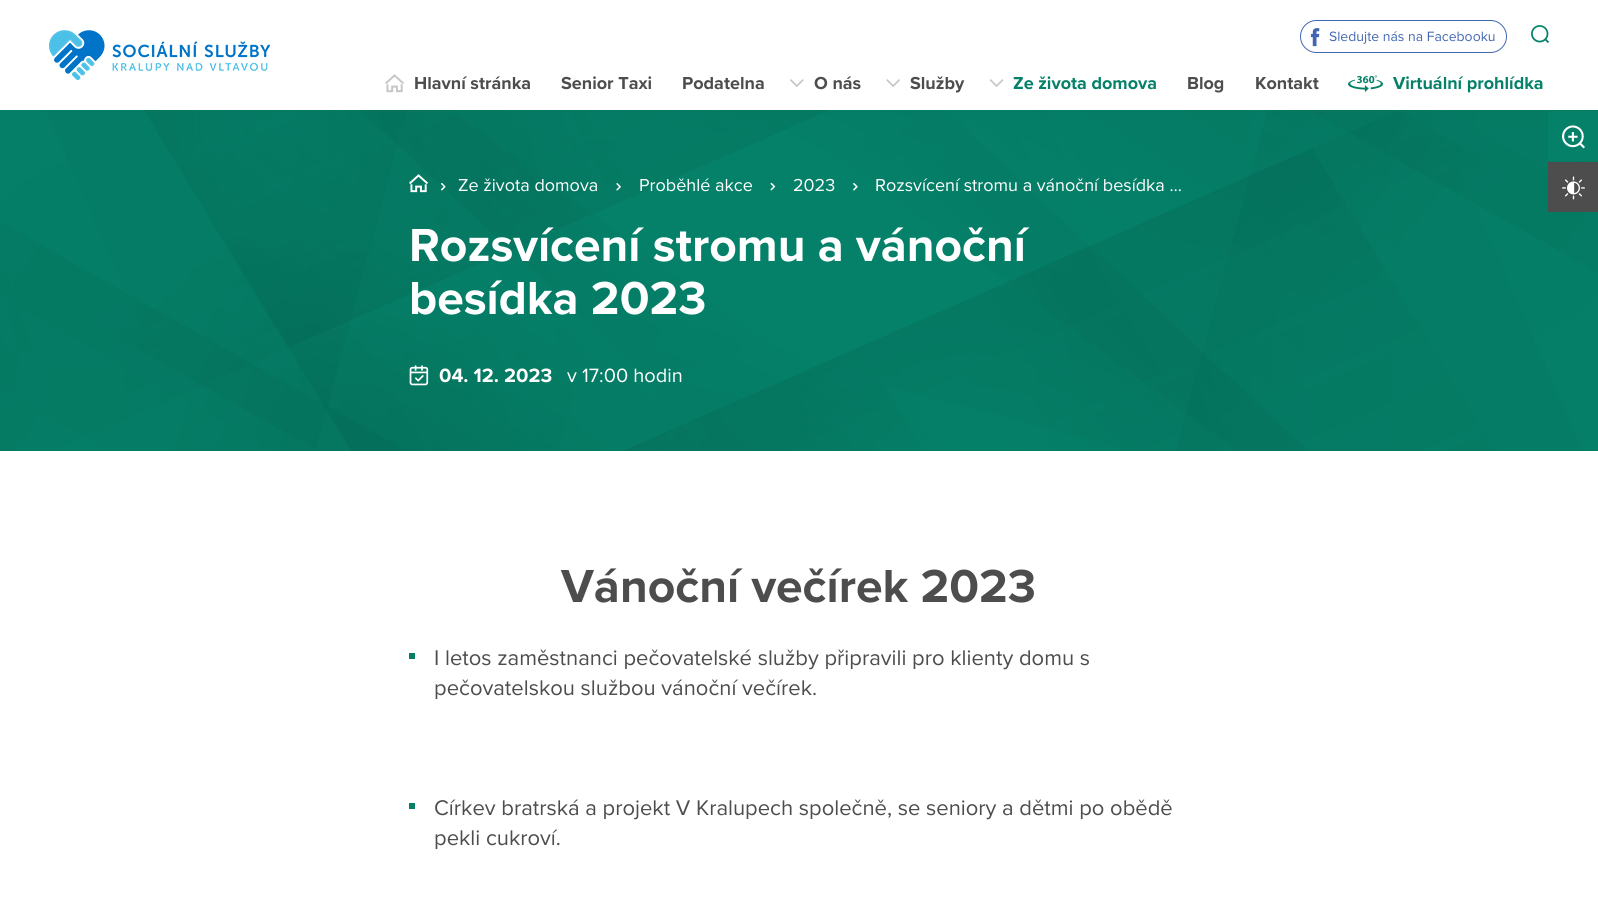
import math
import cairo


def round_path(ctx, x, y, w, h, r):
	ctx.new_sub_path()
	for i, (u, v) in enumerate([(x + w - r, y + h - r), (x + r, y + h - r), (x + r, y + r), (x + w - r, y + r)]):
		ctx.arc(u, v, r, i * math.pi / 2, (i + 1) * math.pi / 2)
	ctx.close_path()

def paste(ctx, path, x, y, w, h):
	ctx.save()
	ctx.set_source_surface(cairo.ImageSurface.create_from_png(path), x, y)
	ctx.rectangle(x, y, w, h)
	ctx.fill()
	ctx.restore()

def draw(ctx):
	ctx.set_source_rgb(1, 1, 1)
	ctx.paint()
	paste(ctx, 'media/1.png', 49, 30, 221, 50)
	round_path(ctx, 1300.5, 20.5, 206, 32, 16)
	ctx.set_source_rgb(0.259, 0.404, 0.698)
	ctx.set_line_width(1)
	ctx.stroke()
	paste(ctx, 'media/2.png', 1311, 28, 9, 19)
	ctx.select_font_face('Proxima Nova')
	ctx.set_font_size(14)
	ctx.move_to(1329, 41)
	ctx.show_text('Sledujte nás na Facebooku')
	paste(ctx, 'media/3.png', 1531, 25, 19, 18)
	paste(ctx, 'media/4.png', 385, 74, 19, 19)
	ctx.select_font_face('Proxima Nova', cairo.FONT_SLANT_NORMAL, cairo.FONT_WEIGHT_BOLD)
	ctx.set_font_size(18)
	ctx.set_source_rgb(0.302, 0.302, 0.302)
	for x, y, s in [
		(414, 89, 'Hlavní stránka'),
		(561, 89, 'Senior Taxi'),
		(682, 89, 'Podatelna'),
	]:
		ctx.move_to(x, y)
		ctx.show_text(s)
	paste(ctx, 'media/5.png', 790, 79, 14, 8)
	ctx.move_to(814, 89)
	ctx.show_text('O nás')
	paste(ctx, 'media/6.png', 886, 79, 14, 8)
	ctx.move_to(910, 89)
	ctx.show_text('Služby')
	paste(ctx, 'media/7.png', 989, 79, 15, 8)
	ctx.set_source_rgb(0.02, 0.506, 0.412)
	ctx.move_to(1013, 89)
	ctx.show_text('Ze života domova')
	ctx.set_source_rgb(0.302, 0.302, 0.302)
	ctx.move_to(1187, 89)
	ctx.show_text('Blog')
	ctx.move_to(1255, 89)
	ctx.show_text('Kontakt')
	paste(ctx, 'media/8.png', 1348, 75, 35, 17)
	ctx.set_source_rgb(0.02, 0.506, 0.412)
	ctx.move_to(1393, 89)
	ctx.show_text('Virtuální prohlídka')
	ctx.rectangle(0, 110, 1598, 341)
	ctx.fill()
	paste(ctx, 'media/11.png', 0, 110, 1598, 341)
	ctx.rectangle(1548, 111, 50, 50)
	ctx.fill()
	paste(ctx, 'media/9.png', 1562, 125, 23, 24)
	ctx.set_source_rgb(0.302, 0.302, 0.302)
	ctx.rectangle(1548, 162, 50, 50)
	ctx.fill()
	paste(ctx, 'media/10.png', 1562, 176, 23, 24)
	paste(ctx, 'media/12.png', 409, 174, 19, 19)
	paste(ctx, 'media/13.png', 441, 183, 5, 8)
	ctx.select_font_face('Proxima Nova')
	ctx.set_source_rgb(1, 1, 1)
	ctx.move_to(458, 191)
	ctx.show_text('Ze života domova')
	paste(ctx, 'media/14.png', 616, 183, 5, 8)
	ctx.move_to(639, 191)
	ctx.show_text('Proběhlé akce')
	paste(ctx, 'media/15.png', 770, 182, 5, 9)
	ctx.move_to(793, 191)
	ctx.show_text('2023')
	paste(ctx, 'media/16.png', 853, 183, 5, 8)
	ctx.move_to(875, 191)
	ctx.show_text('Rozsvícení stromu a vánoční besídka …')
	ctx.select_font_face('Proxima Nova', cairo.FONT_SLANT_NORMAL, cairo.FONT_WEIGHT_BOLD)
	ctx.set_font_size(48)
	ctx.move_to(409, 261)
	ctx.show_text('Rozsvícení stromu a vánoční')
	ctx.move_to(409, 314)
	ctx.show_text('besídka 2023')
	paste(ctx, 'media/17.png', 409, 365, 20, 21)
	ctx.set_font_size(20)
	ctx.move_to(439, 382)
	ctx.show_text('04. 12. 2023')
	ctx.select_font_face('Proxima Nova')
	ctx.move_to(567, 382)
	ctx.show_text('v 17:00 hodin')
	ctx.select_font_face('Proxima Nova', cairo.FONT_SLANT_NORMAL, cairo.FONT_WEIGHT_BOLD)
	ctx.set_font_size(48)
	ctx.set_source_rgb(0.302, 0.302, 0.302)
	ctx.move_to(561, 602)
	ctx.show_text('Vánoční večírek 2023')
	ctx.set_source_rgb(0.02, 0.506, 0.412)
	ctx.rectangle(409, 653, 6, 6)
	ctx.fill()
	ctx.select_font_face('Proxima Nova')
	ctx.set_font_size(22)
	ctx.set_source_rgb(0.302, 0.302, 0.302)
	ctx.move_to(434, 665)
	ctx.show_text('I letos zaměstnanci pečovatelské služby připravili pro klienty domu s')
	ctx.move_to(434, 695)
	ctx.show_text('pečovatelskou službou vánoční večírek.')
	ctx.set_source_rgb(0.02, 0.506, 0.412)
	ctx.rectangle(409, 803, 6, 6)
	ctx.fill()
	ctx.set_source_rgb(0.302, 0.302, 0.302)
	ctx.move_to(434, 815)
	ctx.show_text('Církev bratrská a projekt V Kralupech společně, se seniory a dětmi po obědě')
	ctx.move_to(434, 845)
	ctx.show_text('pekli cukroví.')


surface = cairo.ImageSurface(cairo.FORMAT_RGB24, 1598, 914)
ctx = cairo.Context(surface)
options = cairo.FontOptions()
options.set_hint_metrics(cairo.HINT_METRICS_OFF)
options.set_hint_style(cairo.HINT_STYLE_NONE)
ctx.set_font_options(options)
ctx.set_miter_limit(4)
draw(ctx)
surface.write_to_png('image.png')
